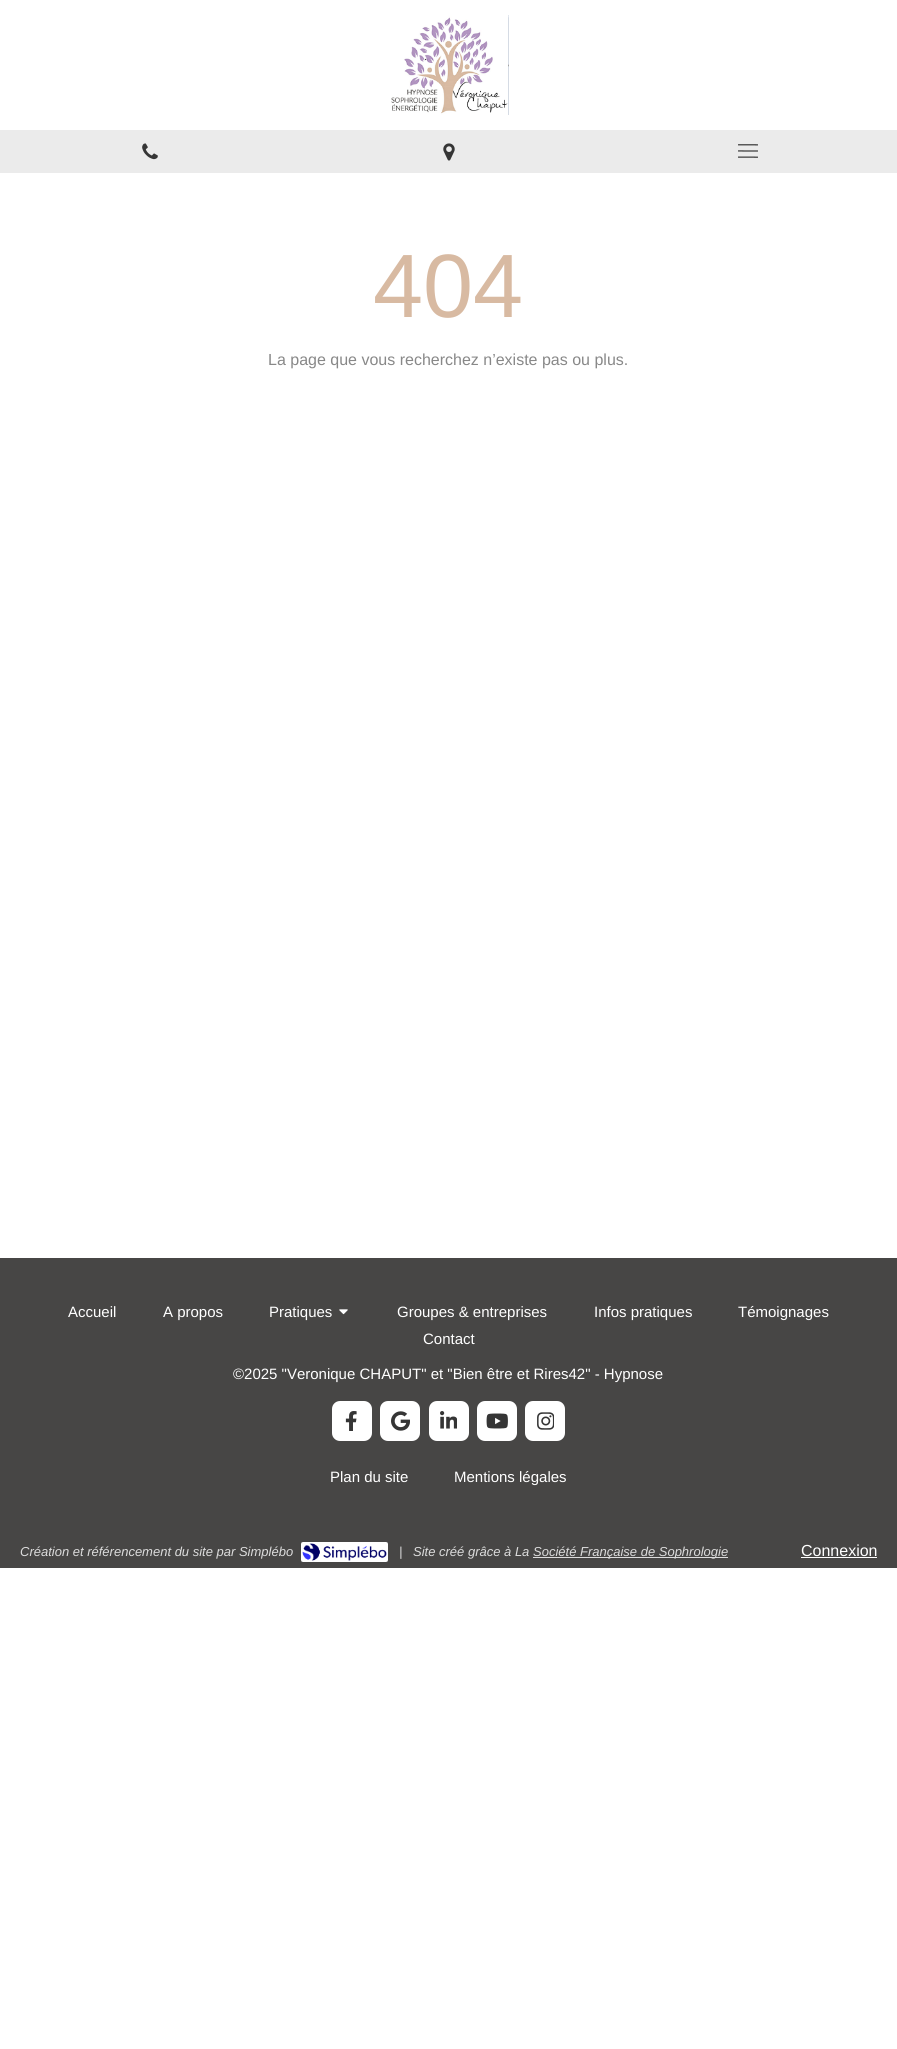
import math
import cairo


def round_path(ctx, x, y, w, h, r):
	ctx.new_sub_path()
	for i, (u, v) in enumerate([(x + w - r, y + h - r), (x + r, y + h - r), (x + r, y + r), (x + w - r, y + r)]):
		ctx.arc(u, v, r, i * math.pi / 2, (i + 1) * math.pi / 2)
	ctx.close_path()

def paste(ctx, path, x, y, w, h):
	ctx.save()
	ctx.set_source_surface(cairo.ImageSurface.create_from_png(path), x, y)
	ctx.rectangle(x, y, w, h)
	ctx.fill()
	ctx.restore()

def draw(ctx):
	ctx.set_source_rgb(1, 1, 1)
	ctx.paint()
	paste(ctx, 'media/1.png', 391, 15, 118, 100)
	ctx.set_source_rgb(0.918, 0.918, 0.918)
	ctx.rectangle(0, 130, 897, 43)
	ctx.fill()
	paste(ctx, 'media/2.png', 142, 143, 16, 17)
	paste(ctx, 'media/3.png', 443, 143, 12, 18)
	paste(ctx, 'media/4.png', 738, 144, 20, 14)
	ctx.select_font_face('Liberation Sans')
	ctx.set_font_size(90)
	ctx.set_source_rgb(0.847, 0.729, 0.635)
	ctx.move_to(373, 317)
	ctx.show_text('404')
	ctx.set_font_size(16)
	ctx.set_source_rgb(0.533, 0.533, 0.533)
	ctx.move_to(268, 365)
	ctx.show_text('La page que vous recherchez n’existe pas ou plus.')
	ctx.set_source_rgb(0.278, 0.275, 0.271)
	ctx.rectangle(0, 1258, 897, 310)
	ctx.fill()
	ctx.set_font_size(15)
	ctx.set_source_rgb(1, 1, 1)
	for x, y, s in [
		(68, 1317, 'Accueil'),
		(163, 1317, 'A propos'),
		(269, 1317, 'Pratiques'),
	]:
		ctx.move_to(x, y)
		ctx.show_text(s)
	paste(ctx, 'media/5.png', 339, 1309, 9, 6)
	for x, y, s in [
		(397, 1317, 'Groupes & entreprises'),
		(594, 1317, 'Infos pratiques'),
		(738, 1317, 'Témoignages'),
		(423, 1344, 'Contact'),
		(233, 1379, '©2025 "Veronique CHAPUT" et "Bien être et Rires42" - Hypnose'),
	]:
		ctx.move_to(x, y)
		ctx.show_text(s)
	round_path(ctx, 332, 1401, 40, 40, 8)
	ctx.fill()
	paste(ctx, 'media/6.png', 345, 1411, 12, 20)
	round_path(ctx, 380, 1401, 40, 40, 8)
	ctx.fill()
	paste(ctx, 'media/7.png', 391, 1411, 19, 20)
	round_path(ctx, 429, 1401, 40, 40, 8)
	ctx.fill()
	paste(ctx, 'media/8.png', 440, 1411, 17, 18)
	round_path(ctx, 477, 1401, 40, 40, 8)
	ctx.fill()
	paste(ctx, 'media/9.png', 486, 1413, 22, 16)
	round_path(ctx, 525, 1401, 40, 40, 8)
	ctx.fill()
	paste(ctx, 'media/10.png', 537, 1412, 17, 18)
	ctx.move_to(330, 1482)
	ctx.show_text('Plan du site')
	ctx.move_to(454, 1482)
	ctx.show_text('Mentions légales')
	ctx.select_font_face('Liberation Sans', cairo.FONT_SLANT_ITALIC)
	ctx.set_font_size(13)
	ctx.set_source_rgb(0.863, 0.863, 0.863)
	ctx.move_to(20, 1556)
	ctx.show_text('Création et référencement du site par Simplébo')
	paste(ctx, 'media/11.png', 301, 1542, 87, 20)
	ctx.move_to(399, 1556)
	ctx.show_text('|')
	ctx.move_to(413, 1556)
	ctx.show_text('Site créé grâce à La')
	ctx.rectangle(533, 1557, 195, 1)
	ctx.fill()
	ctx.move_to(533, 1556)
	ctx.show_text('Société Française de Sophrologie')
	ctx.select_font_face('Liberation Sans')
	ctx.set_font_size(16)
	ctx.set_source_rgb(1, 1, 1)
	ctx.move_to(801, 1556)
	ctx.show_text('Connexion')
	ctx.rectangle(801, 1557, 76, 1)
	ctx.fill()


surface = cairo.ImageSurface(cairo.FORMAT_RGB24, 897, 2049)
ctx = cairo.Context(surface)
options = cairo.FontOptions()
options.set_hint_metrics(cairo.HINT_METRICS_OFF)
options.set_hint_style(cairo.HINT_STYLE_NONE)
ctx.set_font_options(options)
ctx.set_miter_limit(4)
draw(ctx)
surface.write_to_png('image.png')
